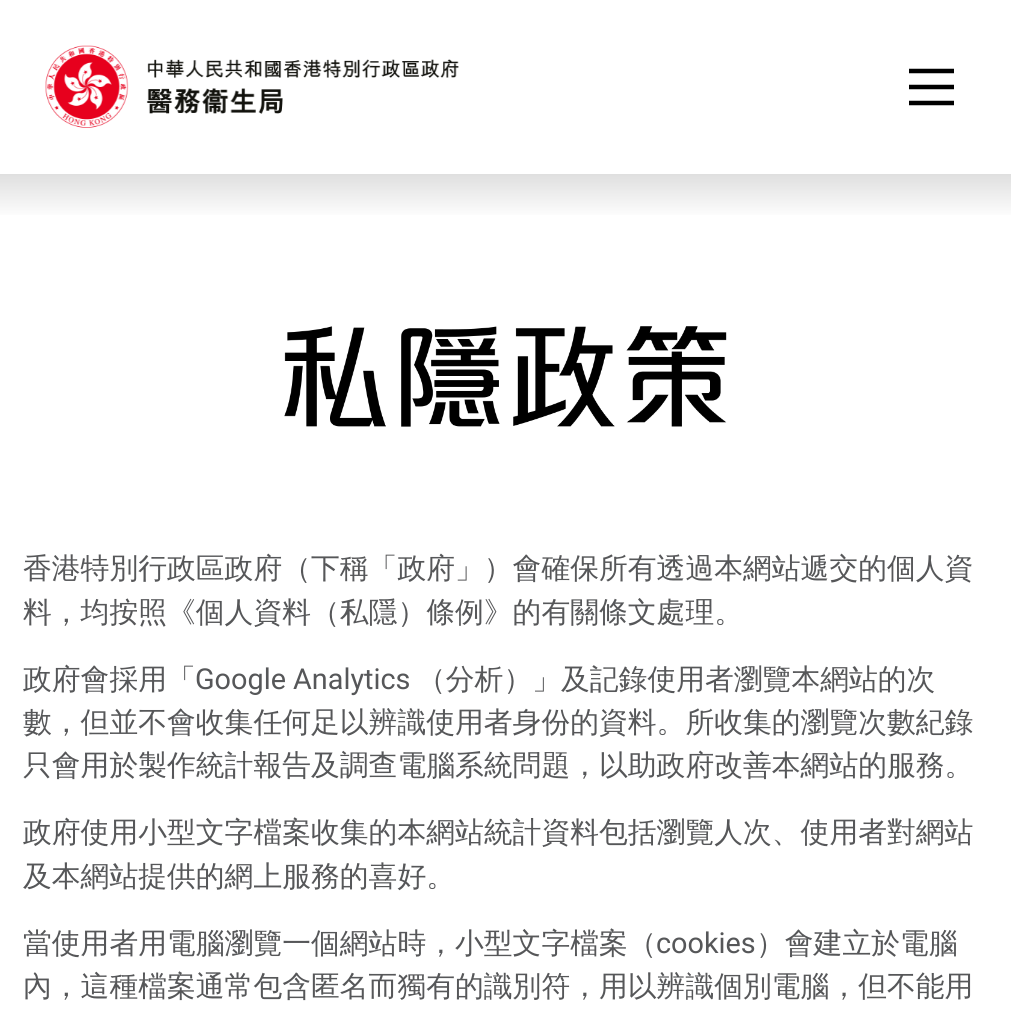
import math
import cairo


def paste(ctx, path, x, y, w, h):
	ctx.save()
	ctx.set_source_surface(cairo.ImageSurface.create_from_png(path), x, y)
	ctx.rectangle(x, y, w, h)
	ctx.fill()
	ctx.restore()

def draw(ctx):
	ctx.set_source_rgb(1, 1, 1)
	ctx.paint()
	paste(ctx, 'media/1.png', 45, 45, 414, 83)
	ctx.new_path()
	ctx.move_to(909, 71)
	ctx.line_to(954, 71)
	ctx.move_to(909, 87)
	ctx.line_to(954, 87)
	ctx.move_to(909, 103)
	ctx.line_to(954, 103)
	ctx.set_source_rgb(0, 0, 0)
	ctx.set_line_width(4.5)
	ctx.stroke()
	gradient = cairo.LinearGradient(506, 174, 506, 219)
	gradient.add_color_stop_rgba(0, 0.875, 0.875, 0.875, 1)
	gradient.add_color_stop_rgba(1, 1, 1, 1, 1)
	ctx.set_source(gradient)
	ctx.rectangle(0, 174, 1011, 41)
	ctx.fill()
	paste(ctx, 'media/2.png', 284, 326, 443, 101)
	ctx.select_font_face('WenQuanYi Zen Hei Medium')
	ctx.set_font_size(28.8)
	ctx.set_source_rgb(0.337, 0.341, 0.349)
	for x, y, s in [
		(23, 578, '香港特別行政區政府（下稱「政府」）會確保所有透過本網站遞交的個人資'),
		(23, 622, '料，均按照《個人資料（私隱）條例》的有關條文處理。'),
		(23, 689, '政府會採用「'),
	]:
		ctx.move_to(x, y)
		ctx.show_text(s)
	ctx.select_font_face('Roboto')
	ctx.move_to(195, 689)
	ctx.show_text('Google Analytics')
	ctx.select_font_face('WenQuanYi Zen Hei Medium')
	for x, y, s in [
		(417, 689, '（分析）」及記錄使用者瀏覽本網站的次'),
		(23, 732, '數，但並不會收集任何足以辨識使用者身份的資料。所收集的瀏覽次數紀錄'),
		(23, 775, '只會用於製作統計報告及調查電腦系統問題，以助政府改善本網站的服務。'),
		(23, 842, '政府使用小型文字檔案收集的本網站統計資料包括瀏覽人次、使用者對網站'),
		(23, 886, '及本網站提供的網上服務的喜好。'),
		(23, 953, '當使用者用電腦瀏覽一個網站時，小型文字檔案（'),
	]:
		ctx.move_to(x, y)
		ctx.show_text(s)
	ctx.select_font_face('Roboto')
	ctx.move_to(656, 953)
	ctx.show_text('cookies')
	ctx.select_font_face('WenQuanYi Zen Hei Medium')
	ctx.move_to(756, 953)
	ctx.show_text('）會建立於電腦')
	ctx.move_to(23, 996)
	ctx.show_text('內，這種檔案通常包含匿名而獨有的識別符，用以辨識個別電腦，但不能用')


surface = cairo.ImageSurface(cairo.FORMAT_RGB24, 1011, 1011)
ctx = cairo.Context(surface)
options = cairo.FontOptions()
options.set_hint_metrics(cairo.HINT_METRICS_OFF)
options.set_hint_style(cairo.HINT_STYLE_NONE)
ctx.set_font_options(options)
ctx.set_miter_limit(4)
draw(ctx)
surface.write_to_png('image.png')
